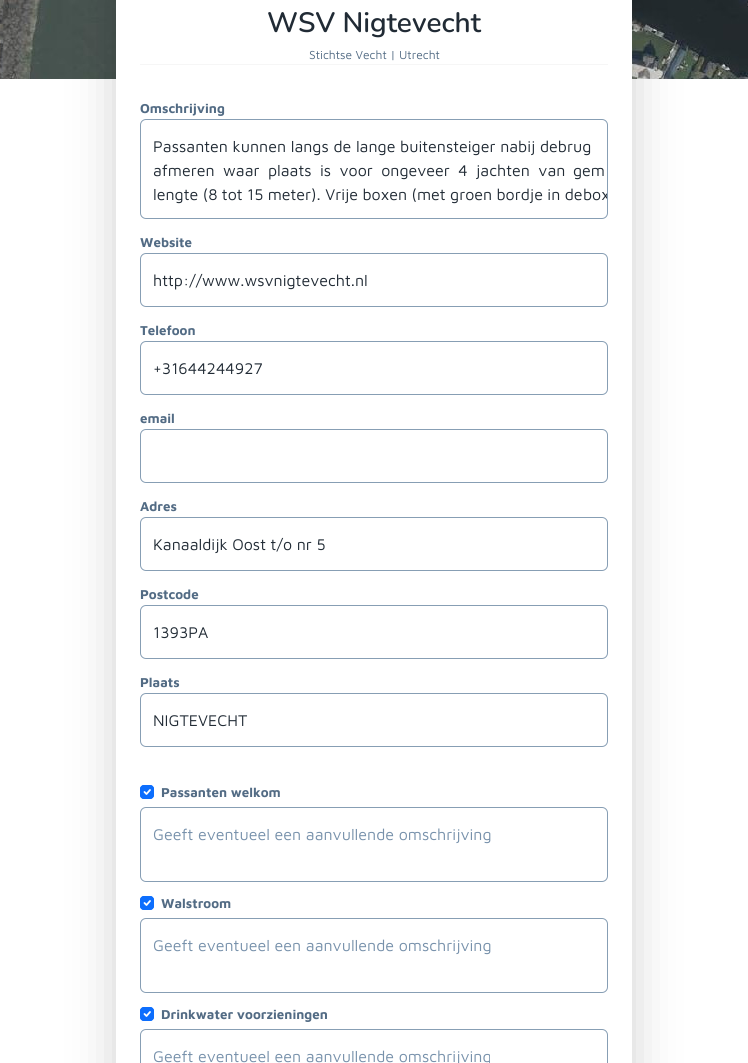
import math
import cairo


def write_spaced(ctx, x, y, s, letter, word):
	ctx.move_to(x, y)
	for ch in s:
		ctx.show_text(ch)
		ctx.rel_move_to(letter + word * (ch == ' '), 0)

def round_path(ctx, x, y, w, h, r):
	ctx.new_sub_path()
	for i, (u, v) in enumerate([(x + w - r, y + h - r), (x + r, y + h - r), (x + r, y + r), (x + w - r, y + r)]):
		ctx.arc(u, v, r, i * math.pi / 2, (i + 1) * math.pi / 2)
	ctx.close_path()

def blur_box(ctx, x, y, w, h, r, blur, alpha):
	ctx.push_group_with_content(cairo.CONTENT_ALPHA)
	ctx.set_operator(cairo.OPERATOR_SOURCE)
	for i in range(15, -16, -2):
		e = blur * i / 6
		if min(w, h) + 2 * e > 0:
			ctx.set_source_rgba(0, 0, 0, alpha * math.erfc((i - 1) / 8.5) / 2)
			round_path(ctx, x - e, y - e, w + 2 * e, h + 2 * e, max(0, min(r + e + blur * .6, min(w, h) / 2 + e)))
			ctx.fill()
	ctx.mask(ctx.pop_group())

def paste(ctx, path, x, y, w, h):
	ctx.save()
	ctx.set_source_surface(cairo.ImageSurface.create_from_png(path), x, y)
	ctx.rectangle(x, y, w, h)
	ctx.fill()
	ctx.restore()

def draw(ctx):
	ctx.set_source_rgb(1, 1, 1)
	ctx.paint()
	paste(ctx, 'media/1.png', 0, 0, 748, 79)
	ctx.set_source_rgb(0, 0, 0)
	blur_box(ctx, 116, -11, 516, 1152, 6, 24, 0.18)
	ctx.set_source_rgb(1, 1, 1)
	ctx.rectangle(116, 0, 516, 1063)
	ctx.fill()
	ctx.select_font_face('Nunito SemiBold')
	ctx.set_font_size(28)
	ctx.set_source_rgb(0.129, 0.169, 0.208)
	ctx.move_to(267, 32)
	ctx.show_text('WSV Nigtevecht')
	ctx.set_source_rgb(0.961, 0.961, 0.961)
	ctx.rectangle(140, 64, 468, 1)
	ctx.fill()
	ctx.select_font_face('Maven Pro')
	ctx.set_font_size(12)
	ctx.set_source_rgb(0.322, 0.42, 0.518)
	ctx.move_to(309, 59)
	ctx.show_text('Stichtse Vecht | Utrecht')
	ctx.select_font_face('Maven Pro', cairo.FONT_SLANT_NORMAL, cairo.FONT_WEIGHT_BOLD)
	ctx.set_font_size(13.3)
	ctx.move_to(140, 113)
	ctx.show_text('Omschrijving')
	round_path(ctx, 140.5, 119.5, 467, 99, 5.5)
	ctx.set_source_rgb(0.529, 0.62, 0.706)
	ctx.set_line_width(1)
	ctx.stroke()
	ctx.select_font_face('Maven Pro')
	ctx.set_font_size(16)
	ctx.set_source_rgb(0.129, 0.169, 0.208)
	ctx.move_to(153, 152)
	ctx.show_text('Passanten kunnen langs de lange buitensteiger nabij debrug')
	write_spaced(ctx, 153, 176, 'afmeren waar plaats is voor ongeveer 4 jachten van', 0, 3.75)
	ctx.move_to(573, 176)
	ctx.show_text('gem')
	write_spaced(ctx, 153, 200, 'lengte (8 tot 15 meter). Vrije boxen (met groen bordje in de', 0, -0.25)
	ctx.save()
	round_path(ctx, 141, 120, 466, 98, 5)
	ctx.clip()
	ctx.move_to(583, 200)
	ctx.show_text('box')
	ctx.restore()
	ctx.select_font_face('Maven Pro', cairo.FONT_SLANT_NORMAL, cairo.FONT_WEIGHT_BOLD)
	ctx.set_font_size(13.3)
	ctx.set_source_rgb(0.322, 0.42, 0.518)
	ctx.move_to(140, 247)
	ctx.show_text('Website')
	round_path(ctx, 140.5, 253.5, 467, 53, 5.5)
	ctx.set_source_rgb(0.529, 0.62, 0.706)
	ctx.stroke()
	ctx.select_font_face('Maven Pro')
	ctx.set_font_size(16)
	ctx.set_source_rgb(0.129, 0.169, 0.208)
	ctx.move_to(153, 286)
	ctx.show_text('http://www.wsvnigtevecht.nl')
	ctx.select_font_face('Maven Pro', cairo.FONT_SLANT_NORMAL, cairo.FONT_WEIGHT_BOLD)
	ctx.set_font_size(13.3)
	ctx.set_source_rgb(0.322, 0.42, 0.518)
	ctx.move_to(140, 335)
	ctx.show_text('Telefoon')
	round_path(ctx, 140.5, 341.5, 467, 53, 5.5)
	ctx.set_source_rgb(0.529, 0.62, 0.706)
	ctx.stroke()
	ctx.select_font_face('Maven Pro')
	ctx.set_font_size(16)
	ctx.set_source_rgb(0.129, 0.169, 0.208)
	ctx.move_to(153, 374)
	ctx.show_text('+31644244927')
	ctx.select_font_face('Maven Pro', cairo.FONT_SLANT_NORMAL, cairo.FONT_WEIGHT_BOLD)
	ctx.set_font_size(13.3)
	ctx.set_source_rgb(0.322, 0.42, 0.518)
	ctx.move_to(140, 423)
	ctx.show_text('email')
	round_path(ctx, 140.5, 429.5, 467, 53, 5.5)
	ctx.set_source_rgb(0.529, 0.62, 0.706)
	ctx.stroke()
	ctx.set_source_rgb(0.322, 0.42, 0.518)
	ctx.move_to(140, 511)
	ctx.show_text('Adres')
	round_path(ctx, 140.5, 517.5, 467, 53, 5.5)
	ctx.set_source_rgb(0.529, 0.62, 0.706)
	ctx.stroke()
	ctx.select_font_face('Maven Pro')
	ctx.set_font_size(16)
	ctx.set_source_rgb(0.129, 0.169, 0.208)
	ctx.move_to(153, 550)
	ctx.show_text('Kanaaldijk Oost t/o nr 5')
	ctx.select_font_face('Maven Pro', cairo.FONT_SLANT_NORMAL, cairo.FONT_WEIGHT_BOLD)
	ctx.set_font_size(13.3)
	ctx.set_source_rgb(0.322, 0.42, 0.518)
	ctx.move_to(140, 599)
	ctx.show_text('Postcode')
	round_path(ctx, 140.5, 605.5, 467, 53, 5.5)
	ctx.set_source_rgb(0.529, 0.62, 0.706)
	ctx.stroke()
	ctx.select_font_face('Maven Pro')
	ctx.set_font_size(16)
	ctx.set_source_rgb(0.129, 0.169, 0.208)
	ctx.move_to(153, 638)
	ctx.show_text('1393PA')
	ctx.select_font_face('Maven Pro', cairo.FONT_SLANT_NORMAL, cairo.FONT_WEIGHT_BOLD)
	ctx.set_font_size(13.3)
	ctx.set_source_rgb(0.322, 0.42, 0.518)
	ctx.move_to(140, 687)
	ctx.show_text('Plaats')
	round_path(ctx, 140.5, 693.5, 467, 53, 5.5)
	ctx.set_source_rgb(0.529, 0.62, 0.706)
	ctx.stroke()
	ctx.select_font_face('Maven Pro')
	ctx.set_font_size(16)
	ctx.set_source_rgb(0.129, 0.169, 0.208)
	ctx.move_to(153, 726)
	ctx.show_text('NIGTEVECHT')
	ctx.set_source_rgb(0.051, 0.431, 0.992)
	round_path(ctx, 140, 785, 14, 14, 4)
	ctx.fill()
	ctx.new_path()
	ctx.move_to(144.5, 792)
	ctx.line_to(146.5, 794)
	ctx.line_to(150, 790)
	ctx.set_source_rgb(1, 1, 1)
	ctx.set_line_width(1.8)
	ctx.set_line_cap(cairo.LINE_CAP_ROUND)
	ctx.set_line_join(cairo.LINE_JOIN_ROUND)
	ctx.stroke()
	round_path(ctx, 140.5, 785.5, 13, 13, 3.5)
	ctx.set_source_rgb(0.051, 0.431, 0.992)
	ctx.set_line_width(1)
	ctx.set_line_cap(cairo.LINE_CAP_BUTT)
	ctx.set_line_join(cairo.LINE_JOIN_MITER)
	ctx.stroke()
	ctx.select_font_face('Maven Pro', cairo.FONT_SLANT_NORMAL, cairo.FONT_WEIGHT_BOLD)
	ctx.set_font_size(13.3)
	ctx.set_source_rgb(0.322, 0.42, 0.518)
	ctx.move_to(161, 797)
	ctx.show_text('Passanten welkom')
	round_path(ctx, 140.5, 807.5, 467, 74, 5.5)
	ctx.set_source_rgb(0.529, 0.62, 0.706)
	ctx.stroke()
	ctx.select_font_face('Maven Pro')
	ctx.set_font_size(16)
	ctx.set_source_rgb(0.467, 0.569, 0.671)
	ctx.move_to(153, 840)
	ctx.show_text('Geeft eventueel een aanvullende omschrijving')
	ctx.set_source_rgb(0.051, 0.431, 0.992)
	round_path(ctx, 140, 896, 14, 14, 4)
	ctx.fill()
	ctx.new_path()
	ctx.move_to(144.5, 903)
	ctx.line_to(146.5, 905)
	ctx.line_to(150, 901)
	ctx.set_source_rgb(1, 1, 1)
	ctx.set_line_width(1.8)
	ctx.set_line_cap(cairo.LINE_CAP_ROUND)
	ctx.set_line_join(cairo.LINE_JOIN_ROUND)
	ctx.stroke()
	round_path(ctx, 140.5, 896.5, 13, 13, 3.5)
	ctx.set_source_rgb(0.051, 0.431, 0.992)
	ctx.set_line_width(1)
	ctx.set_line_cap(cairo.LINE_CAP_BUTT)
	ctx.set_line_join(cairo.LINE_JOIN_MITER)
	ctx.stroke()
	ctx.select_font_face('Maven Pro', cairo.FONT_SLANT_NORMAL, cairo.FONT_WEIGHT_BOLD)
	ctx.set_font_size(13.3)
	ctx.set_source_rgb(0.322, 0.42, 0.518)
	ctx.move_to(161, 908)
	ctx.show_text('Walstroom')
	round_path(ctx, 140.5, 918.5, 467, 74, 5.5)
	ctx.set_source_rgb(0.529, 0.62, 0.706)
	ctx.stroke()
	ctx.select_font_face('Maven Pro')
	ctx.set_font_size(16)
	ctx.set_source_rgb(0.467, 0.569, 0.671)
	ctx.move_to(153, 951)
	ctx.show_text('Geeft eventueel een aanvullende omschrijving')
	ctx.set_source_rgb(0.051, 0.431, 0.992)
	round_path(ctx, 140, 1007, 14, 14, 4)
	ctx.fill()
	ctx.new_path()
	ctx.move_to(144.5, 1014)
	ctx.line_to(146.5, 1016)
	ctx.line_to(150, 1012)
	ctx.set_source_rgb(1, 1, 1)
	ctx.set_line_width(1.8)
	ctx.set_line_cap(cairo.LINE_CAP_ROUND)
	ctx.set_line_join(cairo.LINE_JOIN_ROUND)
	ctx.stroke()
	round_path(ctx, 140.5, 1007.5, 13, 13, 3.5)
	ctx.set_source_rgb(0.051, 0.431, 0.992)
	ctx.set_line_width(1)
	ctx.set_line_cap(cairo.LINE_CAP_BUTT)
	ctx.set_line_join(cairo.LINE_JOIN_MITER)
	ctx.stroke()
	ctx.select_font_face('Maven Pro', cairo.FONT_SLANT_NORMAL, cairo.FONT_WEIGHT_BOLD)
	ctx.set_font_size(13.3)
	ctx.set_source_rgb(0.322, 0.42, 0.518)
	ctx.move_to(161, 1019)
	ctx.show_text('Drinkwater voorzieningen')
	round_path(ctx, 140.5, 1029.5, 467, 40, 5.5)
	ctx.set_source_rgb(0.529, 0.62, 0.706)
	ctx.stroke()
	ctx.select_font_face('Maven Pro')
	ctx.set_font_size(16)
	ctx.set_source_rgb(0.467, 0.569, 0.671)
	ctx.move_to(153, 1062)
	ctx.show_text('Geeft eventueel een aanvullende omschrijving')


surface = cairo.ImageSurface(cairo.FORMAT_RGB24, 748, 1063)
ctx = cairo.Context(surface)
options = cairo.FontOptions()
options.set_hint_metrics(cairo.HINT_METRICS_OFF)
options.set_hint_style(cairo.HINT_STYLE_NONE)
ctx.set_font_options(options)
ctx.set_miter_limit(4)
draw(ctx)
surface.write_to_png('image.png')
